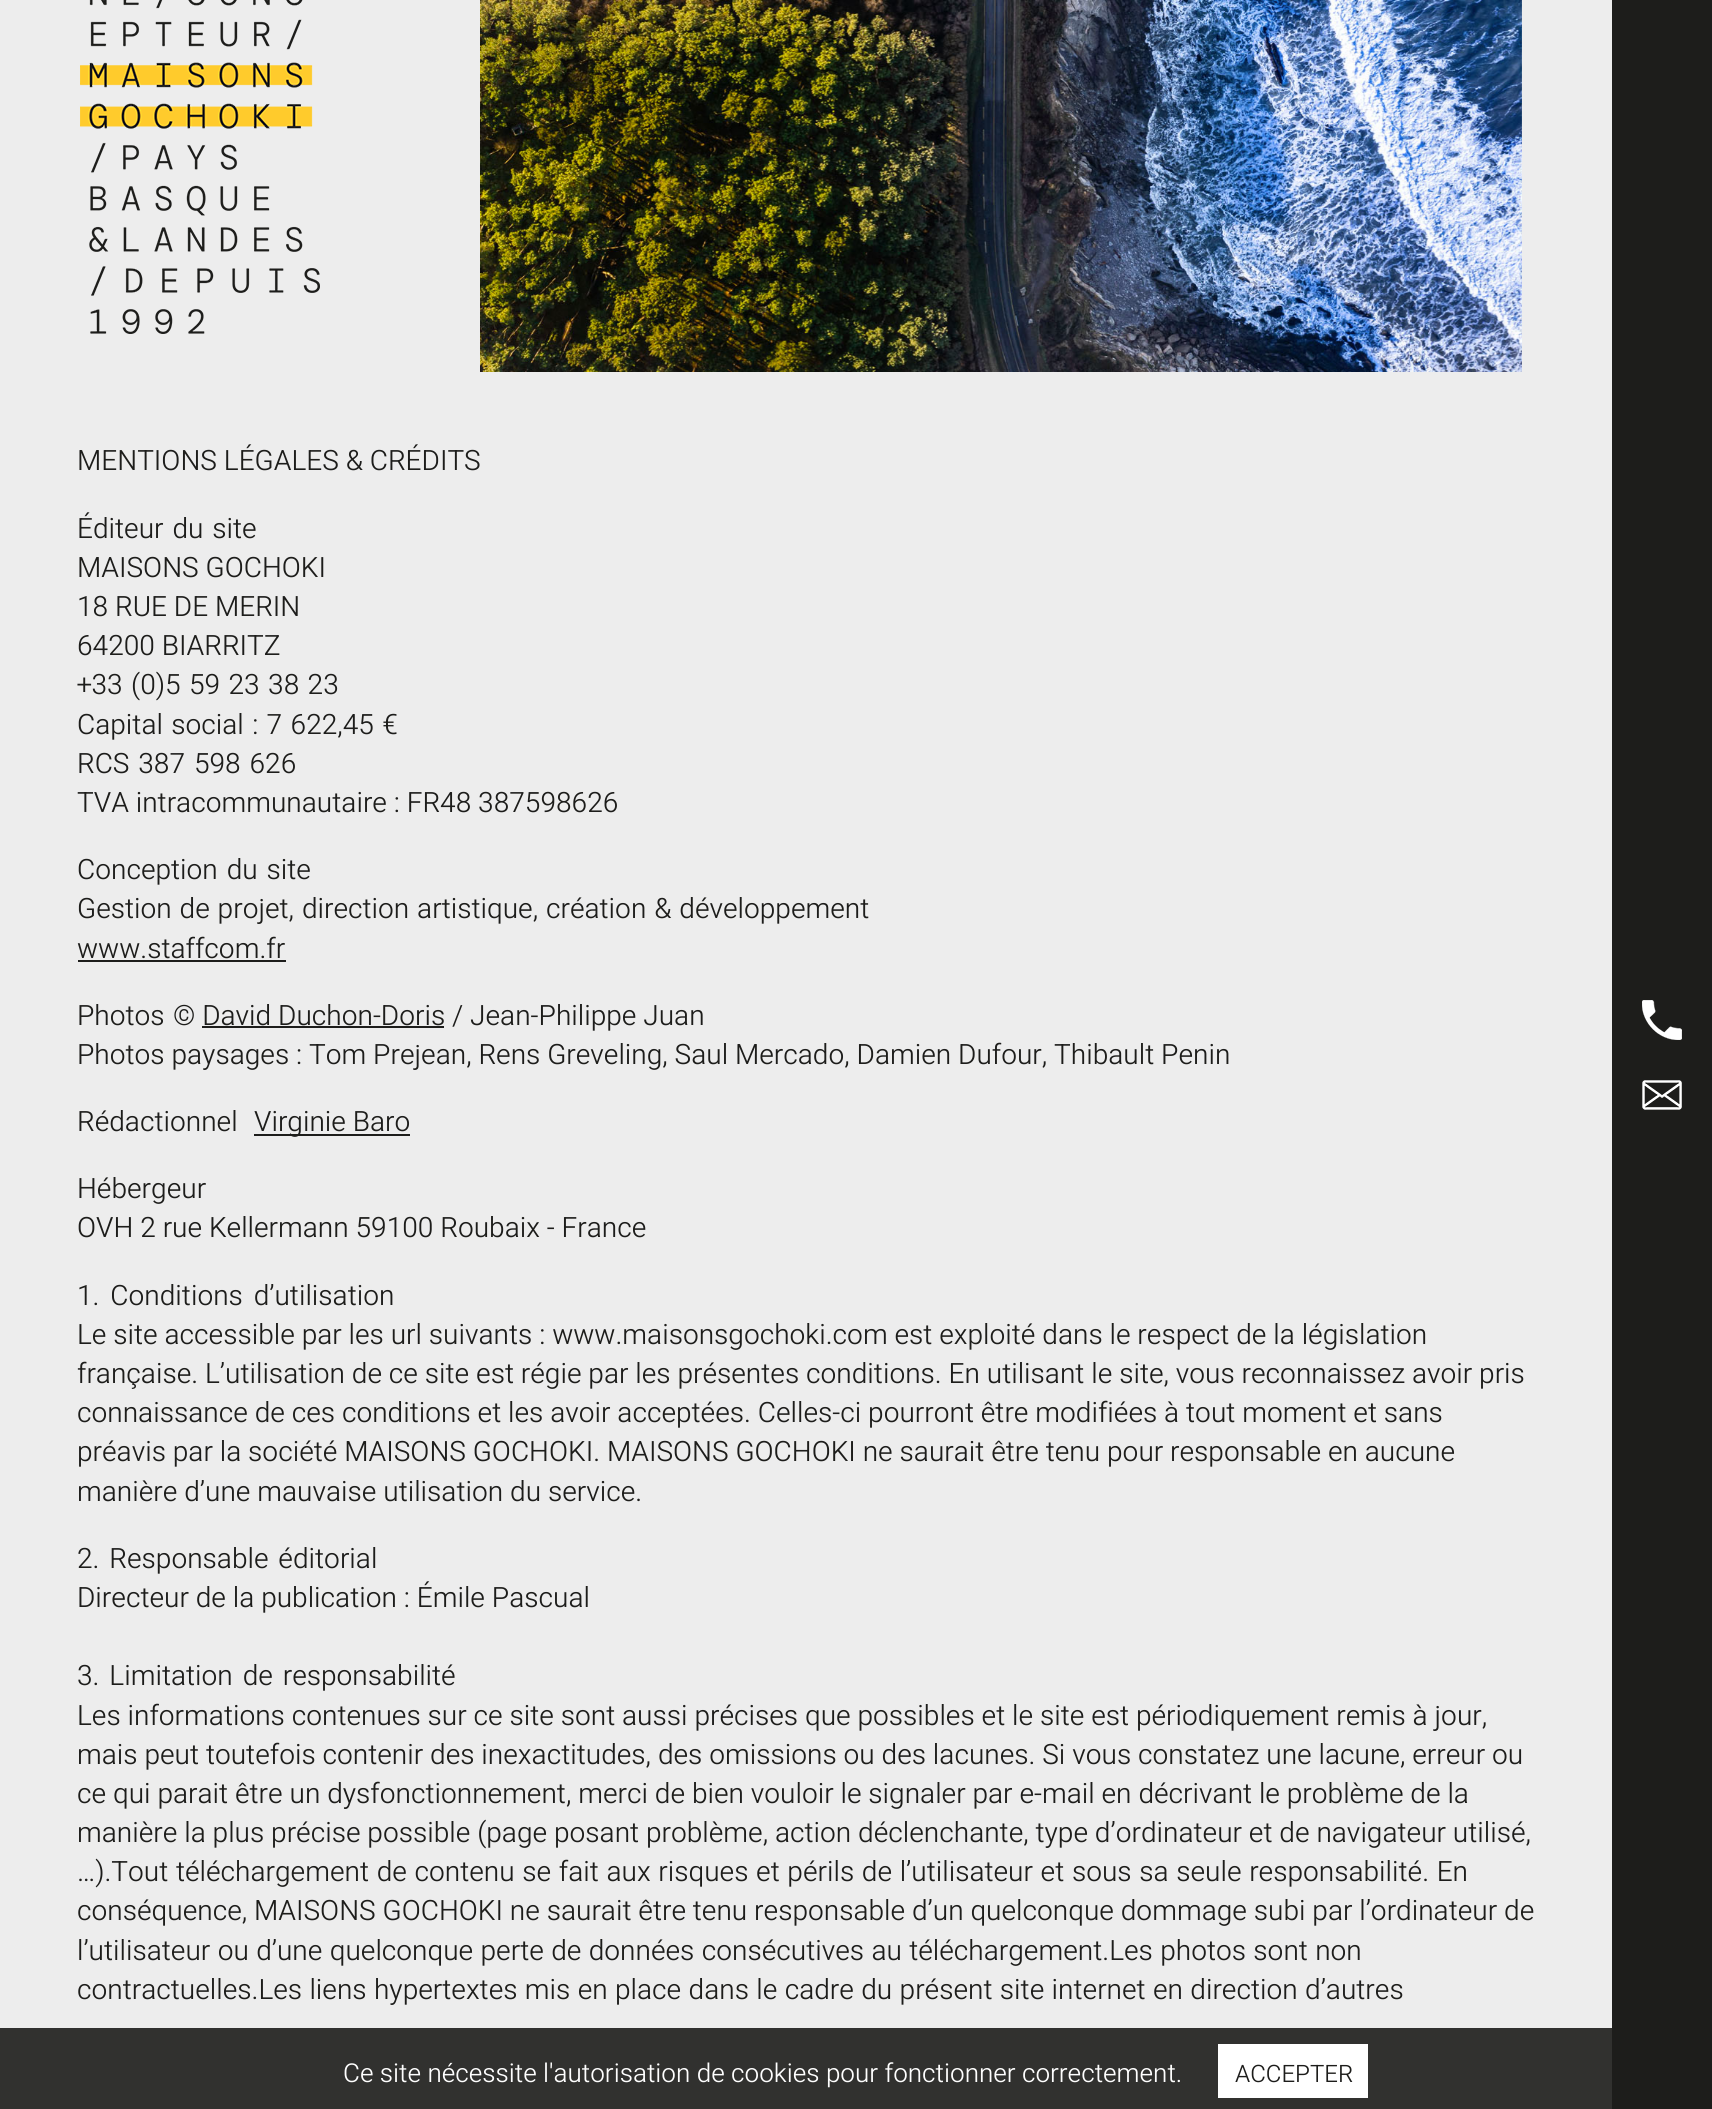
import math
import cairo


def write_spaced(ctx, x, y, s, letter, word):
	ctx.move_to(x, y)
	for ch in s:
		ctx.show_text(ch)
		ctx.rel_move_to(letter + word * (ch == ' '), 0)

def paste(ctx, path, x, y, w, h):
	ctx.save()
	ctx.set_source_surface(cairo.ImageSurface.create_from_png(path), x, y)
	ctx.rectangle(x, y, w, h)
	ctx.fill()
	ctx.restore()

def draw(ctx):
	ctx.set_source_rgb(0.929, 0.929, 0.929)
	ctx.paint()
	paste(ctx, 'media/1.png', 80, 0, 240, 334)
	ctx.set_source_rgb(0.114, 0.114, 0.106)
	ctx.rectangle(1612, 0, 100, 2109)
	ctx.fill()
	paste(ctx, 'media/2.png', 1642, 1000, 40, 40)
	paste(ctx, 'media/3.png', 1642, 1080, 40, 30)
	paste(ctx, 'media/4.png', 480, 0, 1042, 372)
	ctx.select_font_face('Heebo Light')
	ctx.set_font_size(28)
	ctx.move_to(77, 470)
	ctx.show_text('MENTIONS LÉGALES & CRÉDITS')
	write_spaced(ctx, 77, 538, 'Éditeur du site', 0, 2)
	for x, y, s in [
		(77, 577, 'MAISONS GOCHOKI'),
		(77, 616, '18 RUE DE MERIN'),
		(77, 655, '64200 BIARRITZ'),
	]:
		ctx.move_to(x, y)
		ctx.show_text(s)
	write_spaced(ctx, 77, 694, '+33 (0)5 59 23 38 23', 0, 1.5)
	write_spaced(ctx, 77, 734, 'Capital social : 7 622,45 €', 0, 1.5)
	write_spaced(ctx, 77, 773, 'RCS 387 598 626', 0, 2)
	ctx.move_to(77, 812)
	ctx.show_text('TVA intracommunautaire : FR48 387598626')
	write_spaced(ctx, 77, 879, 'Conception du site', 0, 2)
	write_spaced(ctx, 77, 918, 'Gestion de projet, direction artistique, création & développement', 0, 1)
	ctx.move_to(77, 958)
	ctx.show_text('www.staffcom.fr')
	ctx.rectangle(78, 960, 208, 2)
	ctx.fill()
	ctx.move_to(77, 1025)
	ctx.show_text('Photos')
	ctx.move_to(173, 1025)
	ctx.show_text('© David Duchon-Doris / Jean-Philippe Juan')
	ctx.rectangle(202, 1026, 242, 2)
	ctx.fill()
	ctx.move_to(77, 1064)
	ctx.show_text('Photos paysages : Tom Prejean, Rens Greveling, Saul Mercado, Damien Dufour, Thibault Penin')
	ctx.move_to(77, 1131)
	ctx.show_text('Rédactionnel')
	ctx.rectangle(254, 1134, 156, 2)
	ctx.fill()
	for x, y, s in [
		(254, 1131, 'Virginie Baro'),
		(77, 1198, 'Hébergeur'),
		(77, 1237, 'OVH 2 rue Kellermann 59100 Roubaix - France'),
	]:
		ctx.move_to(x, y)
		ctx.show_text(s)
	write_spaced(ctx, 77, 1305, '1. Conditions d’utilisation', 0, 4)
	for x, y, s in [
		(77, 1344, 'Le site accessible par les url suivants : www.maisonsgochoki.com est exploité dans le respect de la législation'),
		(77, 1383, 'française. L’utilisation de ce site est régie par les présentes conditions. En utilisant le site, vous reconnaissez avoir pris'),
		(77, 1422, 'connaissance de ces conditions et les avoir acceptées. Celles-ci pourront être modifiées à tout moment et sans'),
		(77, 1461, 'préavis par la société MAISONS GOCHOKI. MAISONS GOCHOKI ne saurait être tenu pour responsable en aucune'),
		(77, 1501, 'manière d’une mauvaise utilisation du service.'),
	]:
		ctx.move_to(x, y)
		ctx.show_text(s)
	write_spaced(ctx, 77, 1568, '2. Responsable éditorial', 0, 3)
	ctx.move_to(77, 1607)
	ctx.show_text('Directeur de la publication : Émile Pascual')
	write_spaced(ctx, 77, 1685, '3. Limitation de responsabilité', 0, 3)
	for x, y, s in [
		(77, 1725, 'Les informations contenues sur ce site sont aussi précises que possibles et le site est périodiquement remis à jour,'),
		(77, 1764, 'mais peut toutefois contenir des inexactitudes, des omissions ou des lacunes. Si vous constatez une lacune, erreur ou'),
		(77, 1803, 'ce qui parait être un dysfonctionnement, merci de bien vouloir le signaler par e-mail en décrivant le problème de la'),
		(77, 1842, 'manière la plus précise possible (page posant problème, action déclenchante, type d’ordinateur et de navigateur utilisé,'),
	]:
		ctx.move_to(x, y)
		ctx.show_text(s)
	write_spaced(ctx, 77, 1881, '…).Tout téléchargement de contenu se fait aux risques et périls de l’utilisateur et sous sa seule responsabilité. En', 0, 0.8)
	ctx.move_to(77, 1920)
	ctx.show_text('conséquence, MAISONS GOCHOKI ne saurait être tenu responsable d’un quelconque dommage subi par l’ordinateur de')
	write_spaced(ctx, 77, 1960, 'l’utilisateur ou d’une quelconque perte de données consécutives au téléchargement.Les photos sont non', 0, 0.5)
	write_spaced(ctx, 77, 1999, 'contractuelles.Les liens hypertextes mis en place dans le cadre du présent site internet en direction d’autres', 0, 0.5)
	ctx.set_source_rgba(0.114, 0.114, 0.106, 0.9)
	ctx.rectangle(0, 2028, 1612, 81)
	ctx.fill()
	ctx.set_font_size(26)
	ctx.set_source_rgb(1, 1, 1)
	ctx.move_to(343, 2082)
	ctx.show_text('Ce site nécessite l\'autorisation de cookies pour fonctionner correctement.')
	ctx.rectangle(1218, 2044, 150, 54)
	ctx.fill()
	ctx.set_font_size(24)
	ctx.set_source_rgb(0.114, 0.114, 0.106)
	ctx.move_to(1235, 2082)
	ctx.show_text('ACCEPTER')


surface = cairo.ImageSurface(cairo.FORMAT_RGB24, 1712, 2109)
ctx = cairo.Context(surface)
options = cairo.FontOptions()
options.set_hint_metrics(cairo.HINT_METRICS_OFF)
options.set_hint_style(cairo.HINT_STYLE_NONE)
ctx.set_font_options(options)
ctx.set_miter_limit(4)
draw(ctx)
surface.write_to_png('image.png')
